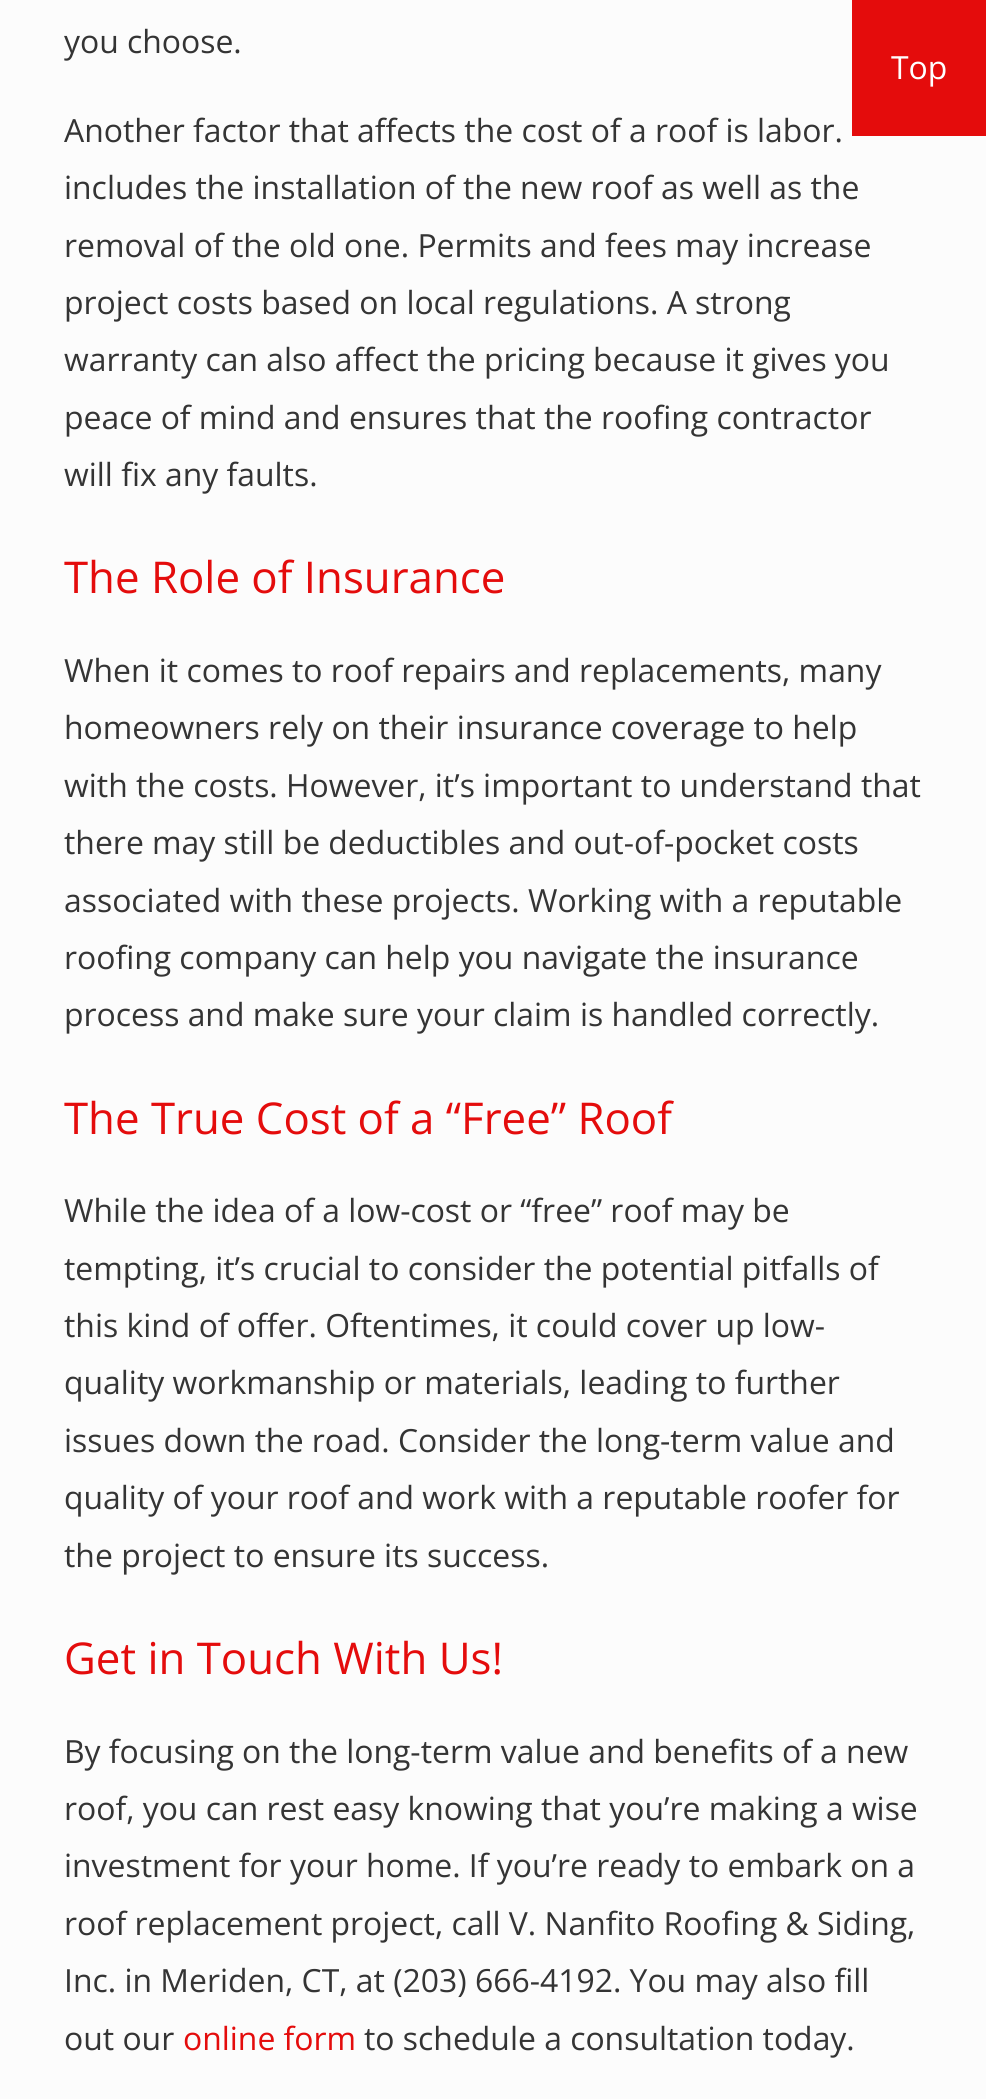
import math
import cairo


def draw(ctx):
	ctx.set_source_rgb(0.988, 0.988, 0.988)
	ctx.paint()
	ctx.select_font_face('Open Sans')
	ctx.set_font_size(31.9)
	ctx.set_source_rgb(0.204, 0.204, 0.204)
	for x, y, s in [
		(64, 53, 'you choose.'),
		(64, 142, 'Another factor that affects the cost of a roof is labor.'),
		(64, 199, 'includes the installation of the new roof as well as the'),
		(64, 257, 'removal of the old one. Permits and fees may increase'),
		(64, 314, 'project costs based on local regulations. A strong'),
		(64, 371, 'warranty can also affect the pricing because it gives you'),
		(64, 429, 'peace of mind and ensures that the roofing contractor'),
		(64, 486, 'will fix any faults.'),
	]:
		ctx.move_to(x, y)
		ctx.show_text(s)
	ctx.set_font_size(43.8)
	ctx.set_source_rgb(0.894, 0.047, 0.047)
	ctx.move_to(64, 593)
	ctx.show_text('The Role of Insurance')
	ctx.set_font_size(31.9)
	ctx.set_source_rgb(0.204, 0.204, 0.204)
	for x, y, s in [
		(64, 682, 'When it comes to roof repairs and replacements, many'),
		(64, 739, 'homeowners rely on their insurance coverage to help'),
		(64, 797, 'with the costs. However, it’s important to understand that'),
		(64, 854, 'there may still be deductibles and out-of-pocket costs'),
		(64, 912, 'associated with these projects. Working with a reputable'),
		(64, 969, 'roofing company can help you navigate the insurance'),
		(64, 1026, 'process and make sure your claim is handled correctly.'),
	]:
		ctx.move_to(x, y)
		ctx.show_text(s)
	ctx.set_font_size(43.8)
	ctx.set_source_rgb(0.894, 0.047, 0.047)
	ctx.move_to(64, 1134)
	ctx.show_text('The True Cost of a “Free” Roof')
	ctx.set_font_size(31.9)
	ctx.set_source_rgb(0.204, 0.204, 0.204)
	for x, y, s in [
		(64, 1222, 'While the idea of a low-cost or “free” roof may be'),
		(64, 1280, 'tempting, it’s crucial to consider the potential pitfalls of'),
		(64, 1337, 'this kind of offer. Oftentimes, it could cover up low-'),
		(64, 1394, 'quality workmanship or materials, leading to further'),
		(64, 1452, 'issues down the road. Consider the long-term value and'),
		(64, 1509, 'quality of your roof and work with a reputable roofer for'),
		(64, 1567, 'the project to ensure its success.'),
	]:
		ctx.move_to(x, y)
		ctx.show_text(s)
	ctx.set_font_size(43.8)
	ctx.set_source_rgb(0.894, 0.047, 0.047)
	ctx.move_to(64, 1674)
	ctx.show_text('Get in Touch With Us!')
	ctx.set_font_size(31.9)
	ctx.set_source_rgb(0.204, 0.204, 0.204)
	for x, y, s in [
		(64, 1763, 'By focusing on the long-term value and benefits of a new'),
		(64, 1820, 'roof, you can rest easy knowing that you’re making a wise'),
		(64, 1877, 'investment for your home. If you’re ready to embark on a'),
		(64, 1935, 'roof replacement project, call V. Nanfito Roofing & Siding,'),
		(64, 1992, 'Inc. in Meriden, CT, at (203) 666-4192. You may also fill'),
		(64, 2050, 'out our'),
	]:
		ctx.move_to(x, y)
		ctx.show_text(s)
	ctx.set_source_rgb(0.894, 0.047, 0.047)
	ctx.move_to(183, 2050)
	ctx.show_text('online form')
	ctx.set_source_rgb(0.204, 0.204, 0.204)
	ctx.move_to(364, 2050)
	ctx.show_text('to schedule a consultation today.')
	ctx.set_source_rgb(0.894, 0.047, 0.047)
	ctx.rectangle(852, 0, 134, 136)
	ctx.fill()
	ctx.set_source_rgb(1, 1, 1)
	ctx.move_to(891, 79)
	ctx.show_text('Top')


surface = cairo.ImageSurface(cairo.FORMAT_RGB24, 986, 2099)
ctx = cairo.Context(surface)
options = cairo.FontOptions()
options.set_hint_metrics(cairo.HINT_METRICS_OFF)
options.set_hint_style(cairo.HINT_STYLE_NONE)
ctx.set_font_options(options)
ctx.set_miter_limit(4)
draw(ctx)
surface.write_to_png('image.png')
